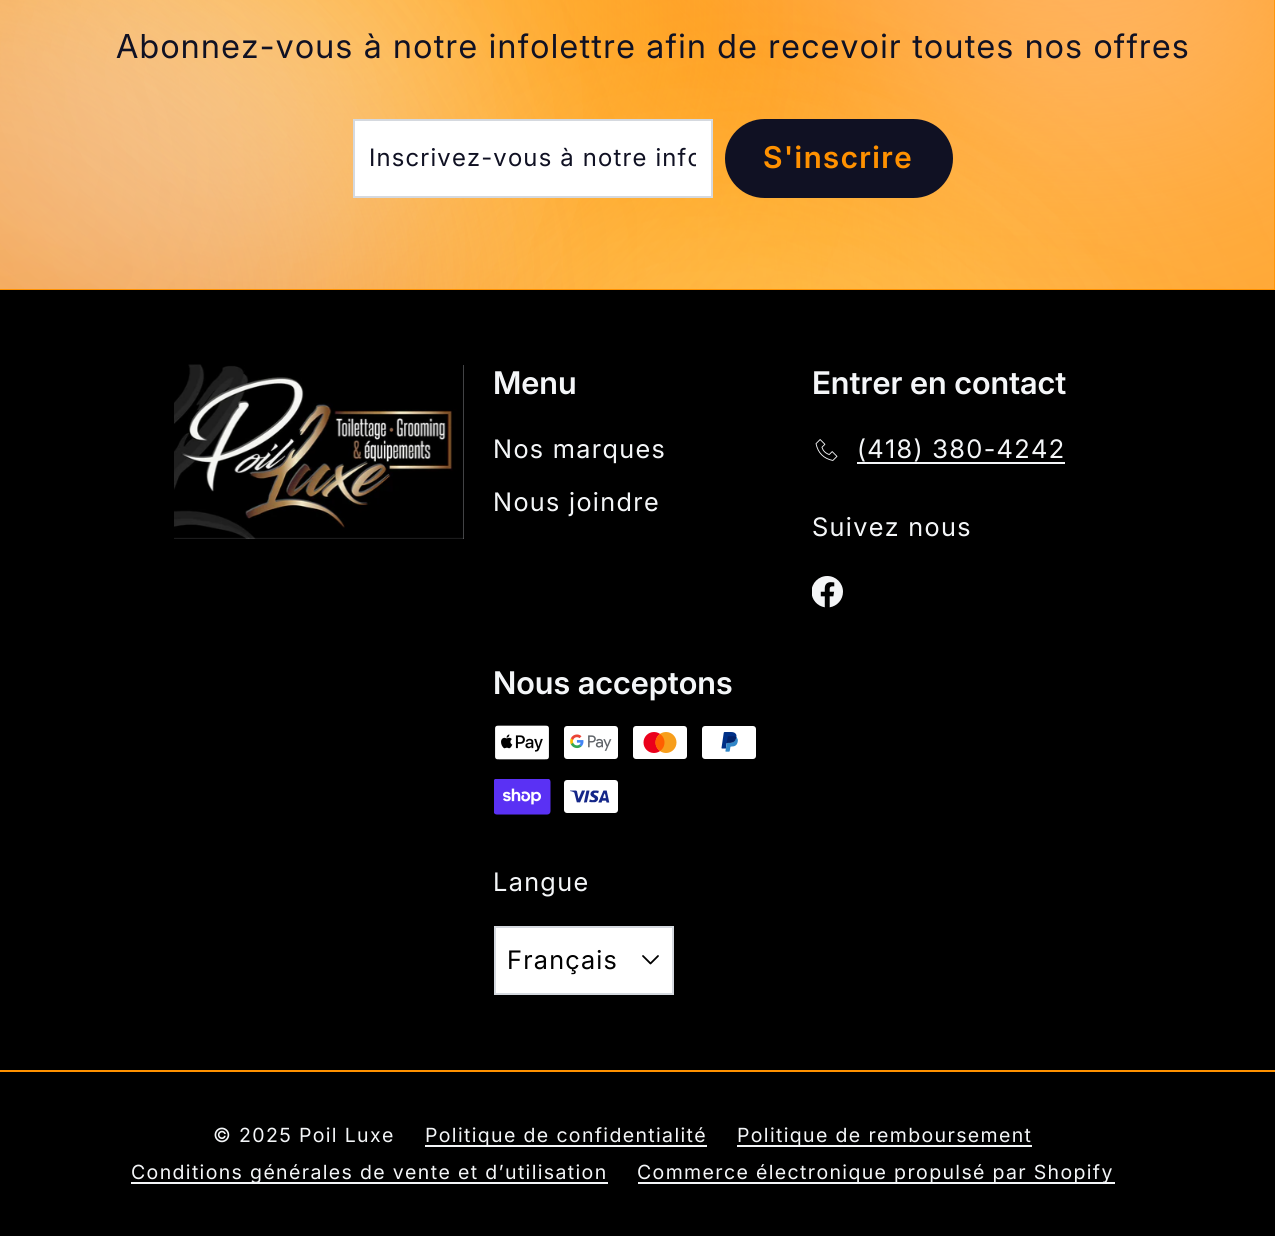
import math
import cairo


def write_spaced(ctx, x, y, s, letter, word):
	ctx.move_to(x, y)
	for ch in s:
		ctx.show_text(ch)
		ctx.rel_move_to(letter + word * (ch == ' '), 0)

def round_path(ctx, x, y, w, h, r):
	ctx.new_sub_path()
	for i, (u, v) in enumerate([(x + w - r, y + h - r), (x + r, y + h - r), (x + r, y + r), (x + w - r, y + r)]):
		ctx.arc(u, v, r, i * math.pi / 2, (i + 1) * math.pi / 2)
	ctx.close_path()

def paste(ctx, path, x, y, w, h):
	ctx.save()
	ctx.set_source_surface(cairo.ImageSurface.create_from_png(path), x, y)
	ctx.rectangle(x, y, w, h)
	ctx.fill()
	ctx.restore()

def draw(ctx):
	ctx.set_source_rgb(0, 0, 0)
	ctx.paint()
	ctx.set_source_rgb(1, 0.569, 0)
	ctx.rectangle(0, 0, 1275, 290)
	ctx.fill()
	paste(ctx, 'media/1.png', 0, 0, 1275, 289)
	ctx.select_font_face('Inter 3')
	ctx.set_font_size(33)
	ctx.set_source_rgb(0.063, 0.067, 0.137)
	write_spaced(ctx, 116, 58, 'Abonnez-vous à notre infolettre afin de recevoir toutes nos offres', 1.35, 0)
	ctx.set_source_rgb(1, 1, 1)
	ctx.rectangle(354, 120, 358, 77)
	ctx.fill_preserve()
	ctx.set_source_rgb(0.835, 0.851, 0.875)
	ctx.stroke()
	ctx.save()
	ctx.rectangle(369, 143, 327, 30)
	ctx.clip()
	ctx.select_font_face('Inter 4')
	ctx.set_font_size(24)
	ctx.set_source_rgb(0.063, 0.067, 0.137)
	write_spaced(ctx, 369, 166, 'Inscrivez-vous à notre info', 1.2, 0)
	ctx.restore()
	ctx.set_source_rgb(0.063, 0.067, 0.137)
	round_path(ctx, 725, 119, 228, 79, 39.5)
	ctx.fill()
	ctx.select_font_face('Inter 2 SemiBold')
	ctx.set_font_size(30)
	ctx.set_source_rgb(1, 0.569, 0)
	write_spaced(ctx, 763, 168, 'S\'inscrire', 1.5, 0)
	ctx.set_source_rgb(0.898, 0.91, 0.929)
	ctx.rectangle(174, 365, 290, 174)
	ctx.fill()
	paste(ctx, 'media/2.png', 174, 364, 290, 175)
	ctx.select_font_face('Inter SemiBold')
	ctx.set_font_size(31.25)
	ctx.set_source_rgb(0.957, 0.961, 0.969)
	ctx.move_to(493, 394)
	ctx.show_text('Menu')
	ctx.select_font_face('Inter')
	ctx.set_font_size(25.5)
	write_spaced(ctx, 493, 458, 'Nos marques', 1.35, 0)
	write_spaced(ctx, 493, 511, 'Nous joindre', 1.35, 0)
	ctx.select_font_face('Inter SemiBold')
	ctx.set_font_size(31.25)
	ctx.move_to(812, 394)
	ctx.show_text('Entrer en contact')
	paste(ctx, 'media/3.png', 815, 439, 23, 22)
	ctx.select_font_face('Inter')
	ctx.set_font_size(25.5)
	write_spaced(ctx, 857, 458, '(418) 380-4242', 1.35, 0)
	ctx.rectangle(857, 462, 208, 2)
	ctx.fill()
	write_spaced(ctx, 812, 536, 'Suivez nous', 1.35, 0)
	paste(ctx, 'media/4.png', 812, 576, 31, 32)
	ctx.select_font_face('Inter SemiBold')
	ctx.set_font_size(31.25)
	ctx.move_to(493, 694)
	ctx.show_text('Nous acceptons')
	paste(ctx, 'media/5.png', 495, 725, 54, 35)
	paste(ctx, 'media/6.png', 564, 726, 54, 33)
	paste(ctx, 'media/7.png', 633, 726, 54, 33)
	paste(ctx, 'media/8.png', 702, 726, 54, 33)
	paste(ctx, 'media/9.png', 494, 779, 57, 36)
	paste(ctx, 'media/10.png', 564, 780, 54, 33)
	ctx.select_font_face('Inter')
	ctx.set_font_size(25.5)
	write_spaced(ctx, 493, 891, 'Langue', 1.35, 0)
	ctx.set_source_rgb(1, 1, 1)
	ctx.rectangle(495, 927, 178, 67)
	ctx.fill_preserve()
	ctx.set_source_rgb(0.835, 0.851, 0.875)
	ctx.stroke()
	ctx.set_source_rgb(0, 0, 0)
	write_spaced(ctx, 507, 969, 'Français', 1.25, 0)
	ctx.new_path()
	ctx.move_to(643, 956)
	ctx.line_to(650.5, 963.5)
	ctx.line_to(658, 956)
	ctx.set_line_width(1.8)
	ctx.set_line_cap(cairo.LINE_CAP_ROUND)
	ctx.set_line_join(cairo.LINE_JOIN_ROUND)
	ctx.stroke()
	ctx.set_source_rgb(1, 0.569, 0)
	ctx.rectangle(0, 1070, 1275, 2)
	ctx.fill()
	ctx.select_font_face('Inter 2')
	ctx.set_font_size(19.5)
	ctx.set_source_rgb(0.957, 0.961, 0.969)
	write_spaced(ctx, 213, 1142, '© 2025 Poil Luxe', 1.35, 0)
	ctx.rectangle(425, 1145, 282, 2)
	ctx.fill()
	write_spaced(ctx, 425, 1142, 'Politique de confidentialité', 1.35, 0)
	ctx.rectangle(737, 1145, 295, 2)
	ctx.fill()
	write_spaced(ctx, 737, 1142, 'Politique de remboursement', 1.35, 0)
	ctx.rectangle(131, 1182, 477, 2)
	ctx.fill()
	write_spaced(ctx, 131, 1179, 'Conditions générales de vente et d’utilisation', 1.35, 0)
	ctx.rectangle(638, 1182, 477, 2)
	ctx.fill()
	write_spaced(ctx, 637, 1179, 'Commerce électronique propulsé par Shopify', 1.35, 0)


surface = cairo.ImageSurface(cairo.FORMAT_RGB24, 1275, 1236)
ctx = cairo.Context(surface)
options = cairo.FontOptions()
options.set_hint_metrics(cairo.HINT_METRICS_OFF)
options.set_hint_style(cairo.HINT_STYLE_NONE)
ctx.set_font_options(options)
ctx.set_miter_limit(4)
draw(ctx)
surface.write_to_png('image.png')
